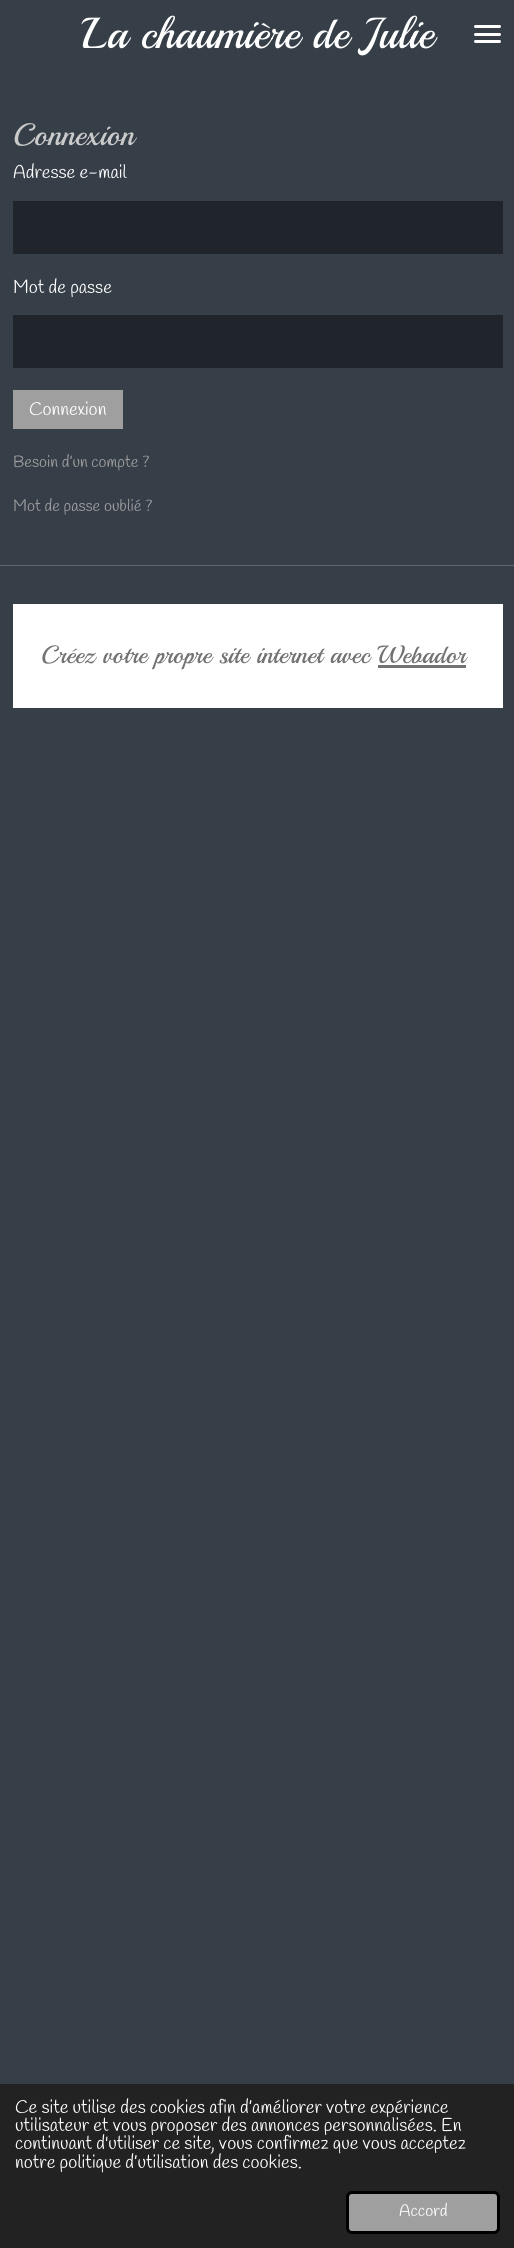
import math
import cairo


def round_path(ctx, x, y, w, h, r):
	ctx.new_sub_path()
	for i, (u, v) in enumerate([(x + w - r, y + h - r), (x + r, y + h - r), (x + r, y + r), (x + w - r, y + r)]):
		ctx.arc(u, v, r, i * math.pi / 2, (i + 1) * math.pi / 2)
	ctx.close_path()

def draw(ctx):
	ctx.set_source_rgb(0.212, 0.247, 0.282)
	ctx.paint()
	ctx.select_font_face('Playball')
	ctx.set_font_size(43.5)
	ctx.set_source_rgb(1, 1, 1)
	ctx.move_to(82, 48)
	ctx.show_text('La chaumière de Julie')
	round_path(ctx, 474, 33, 27, 3, 1.5)
	ctx.fill()
	round_path(ctx, 474, 25, 27, 3, 1.5)
	ctx.fill()
	round_path(ctx, 474, 40, 27, 3, 1.5)
	ctx.fill()
	ctx.set_font_size(31)
	ctx.set_source_rgb(0.792, 0.792, 0.792)
	ctx.move_to(13, 145)
	ctx.show_text('Connexion')
	ctx.select_font_face('Handlee')
	ctx.set_font_size(18.4)
	ctx.set_source_rgb(1, 1, 1)
	ctx.move_to(13, 178)
	ctx.show_text('Adresse e-mail')
	ctx.set_source_rgb(0.125, 0.145, 0.169)
	ctx.rectangle(13, 201, 490, 53)
	ctx.fill()
	ctx.set_source_rgb(1, 1, 1)
	ctx.move_to(13, 293)
	ctx.show_text('Mot de passe')
	ctx.set_source_rgb(0.125, 0.145, 0.169)
	ctx.rectangle(13, 315, 490, 53)
	ctx.fill()
	ctx.set_source_rgb(0.624, 0.624, 0.624)
	ctx.rectangle(13, 390, 110, 39)
	ctx.fill()
	ctx.set_source_rgb(1, 1, 1)
	ctx.move_to(29, 415)
	ctx.show_text('Connexion')
	ctx.set_font_size(16.25)
	ctx.set_source_rgb(0.624, 0.624, 0.624)
	ctx.move_to(13, 467)
	ctx.show_text('Besoin d’un compte ?')
	ctx.move_to(13, 511)
	ctx.show_text('Mot de passe oublié ?')
	ctx.set_source_rgb(0.369, 0.396, 0.427)
	ctx.rectangle(0, 565, 514, 1)
	ctx.fill()
	ctx.set_source_rgb(1, 1, 1)
	ctx.rectangle(13, 604, 490, 104)
	ctx.fill()
	ctx.select_font_face('Playball')
	ctx.set_font_size(25)
	ctx.set_source_rgb(0.451, 0.451, 0.451)
	ctx.move_to(41, 663)
	ctx.show_text('Créez votre propre site internet avec Webador')
	ctx.rectangle(378, 665, 88, 3)
	ctx.fill()
	ctx.set_source_rgb(0.133, 0.133, 0.133)
	ctx.rectangle(0, 2084, 514, 164)
	ctx.fill()
	ctx.select_font_face('Handlee')
	ctx.set_font_size(18.4)
	ctx.set_source_rgb(1, 1, 1)
	for x, y, s in [
		(15, 2113, 'Ce site utilise des cookies afin d’améliorer votre expérience'),
		(15, 2131, 'utilisateur et vous proposer des annonces personnalisées. En'),
		(15, 2149, 'continuant d\'utiliser ce site, vous confirmez que vous acceptez'),
		(15, 2168, 'notre politique d’utilisation des cookies.'),
	]:
		ctx.move_to(x, y)
		ctx.show_text(s)
	ctx.set_source_rgb(0.624, 0.624, 0.624)
	round_path(ctx, 347.5, 2192.5, 151, 40, 4.5)
	ctx.fill_preserve()
	ctx.set_source_rgb(0, 0, 0)
	ctx.set_line_width(3)
	ctx.stroke()
	ctx.set_font_size(16.5)
	ctx.set_source_rgb(1, 1, 1)
	ctx.move_to(399, 2216)
	ctx.show_text('Accord')


surface = cairo.ImageSurface(cairo.FORMAT_RGB24, 514, 2248)
ctx = cairo.Context(surface)
options = cairo.FontOptions()
options.set_hint_metrics(cairo.HINT_METRICS_OFF)
options.set_hint_style(cairo.HINT_STYLE_NONE)
ctx.set_font_options(options)
ctx.set_miter_limit(4)
draw(ctx)
surface.write_to_png('image.png')
